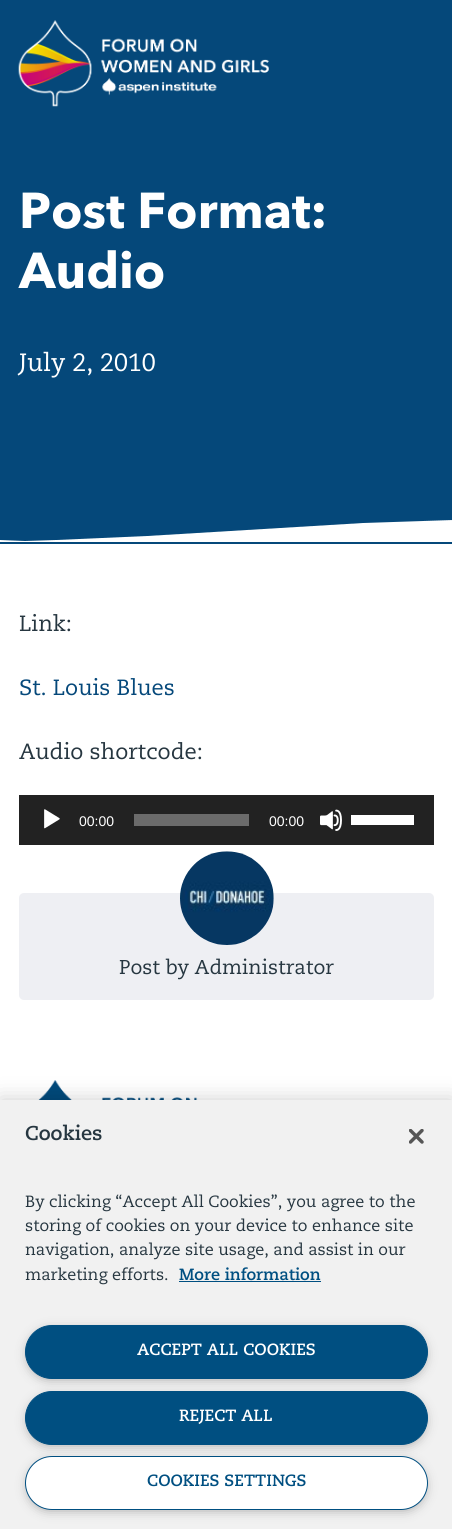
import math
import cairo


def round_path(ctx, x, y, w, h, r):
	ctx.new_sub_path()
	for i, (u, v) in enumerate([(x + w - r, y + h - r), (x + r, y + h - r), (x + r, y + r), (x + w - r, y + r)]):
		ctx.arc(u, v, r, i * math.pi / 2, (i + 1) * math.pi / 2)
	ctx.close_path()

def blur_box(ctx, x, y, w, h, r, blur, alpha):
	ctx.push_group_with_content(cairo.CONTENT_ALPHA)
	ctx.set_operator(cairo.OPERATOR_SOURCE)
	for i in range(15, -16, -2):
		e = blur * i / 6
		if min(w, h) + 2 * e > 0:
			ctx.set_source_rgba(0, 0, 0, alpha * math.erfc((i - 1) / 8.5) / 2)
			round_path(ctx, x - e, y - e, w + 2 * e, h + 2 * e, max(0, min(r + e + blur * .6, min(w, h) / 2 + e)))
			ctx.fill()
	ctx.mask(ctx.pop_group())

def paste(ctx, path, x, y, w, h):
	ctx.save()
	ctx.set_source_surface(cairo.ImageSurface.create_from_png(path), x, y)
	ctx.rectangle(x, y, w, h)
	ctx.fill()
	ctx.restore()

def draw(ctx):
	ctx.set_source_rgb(1, 1, 1)
	ctx.paint()
	ctx.set_source_rgb(0.02, 0.282, 0.478)
	ctx.rectangle(0, 0, 452, 544)
	ctx.fill()
	paste(ctx, 'media/1.png', 18, 20, 251, 87)
	ctx.select_font_face('Avenir Next', cairo.FONT_SLANT_NORMAL, cairo.FONT_WEIGHT_BOLD)
	ctx.set_font_size(50)
	ctx.set_source_rgb(1, 1, 1)
	ctx.move_to(19, 228)
	ctx.show_text('Post Format:')
	ctx.move_to(19, 288)
	ctx.show_text('Audio')
	ctx.select_font_face('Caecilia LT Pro')
	ctx.set_font_size(25)
	ctx.move_to(19, 371)
	ctx.show_text('July 2, 2010')
	ctx.set_fill_rule(cairo.FILL_RULE_EVEN_ODD)
	ctx.new_path()
	ctx.move_to(0, 540)
	ctx.line_to(25, 541)
	ctx.line_to(56, 540)
	ctx.line_to(147, 536)
	ctx.line_to(363, 523)
	ctx.line_to(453, 520)
	ctx.line_to(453, 542)
	ctx.line_to(0, 542)
	ctx.close_path()
	ctx.fill()
	ctx.set_font_size(22)
	ctx.set_source_rgb(0.149, 0.212, 0.251)
	ctx.move_to(19, 631)
	ctx.show_text('Link:')
	ctx.set_source_rgb(0.02, 0.282, 0.478)
	ctx.move_to(19, 695)
	ctx.show_text('St. Louis Blues')
	ctx.set_source_rgb(0.149, 0.212, 0.251)
	ctx.move_to(19, 759)
	ctx.show_text('Audio shortcode:')
	ctx.set_source_rgb(0.133, 0.133, 0.133)
	ctx.rectangle(19, 795, 415, 50)
	ctx.fill()
	paste(ctx, 'media/2.png', 44, 809, 16, 20)
	ctx.select_font_face('Liberation Sans')
	ctx.set_font_size(14)
	ctx.set_source_rgb(1, 1, 1)
	ctx.move_to(79, 826)
	ctx.show_text('00:00')
	ctx.set_source_rgb(0.42, 0.42, 0.42)
	ctx.rectangle(134, 814, 115, 12)
	ctx.fill()
	ctx.set_source_rgb(1, 1, 1)
	ctx.move_to(269, 826)
	ctx.show_text('00:00')
	paste(ctx, 'media/3.png', 320, 809, 22, 22)
	ctx.rectangle(351, 815, 63, 10)
	ctx.fill()
	ctx.set_source_rgb(0.933, 0.937, 0.953)
	round_path(ctx, 19, 893, 415, 107, 5)
	ctx.fill()
	paste(ctx, 'media/4.png', 180, 851, 94, 94)
	ctx.select_font_face('Caecilia LT Pro')
	ctx.set_font_size(20)
	ctx.set_source_rgb(0.149, 0.212, 0.251)
	ctx.move_to(119, 974)
	ctx.show_text('Post by Administrator')
	paste(ctx, 'media/5.png', 38, 1080, 160, 20)
	ctx.set_source_rgb(0, 0, 0)
	blur_box(ctx, 0, 1100, 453, 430, 0, 11, 0.2)
	ctx.set_source_rgb(0.945, 0.945, 0.945)
	ctx.rectangle(0, 1100, 452, 429)
	ctx.fill()
	ctx.select_font_face('Caecilia LT Pro', cairo.FONT_SLANT_NORMAL, cairo.FONT_WEIGHT_BOLD)
	ctx.set_source_rgb(0.149, 0.212, 0.251)
	ctx.move_to(25, 1140)
	ctx.show_text('Cookies')
	ctx.select_font_face('Caecilia LT Pro')
	ctx.set_font_size(16.25)
	for x, y, s in [
		(25, 1207, 'By clicking “Accept All Cookies”, you agree to the'),
		(25, 1231, 'storing of cookies on your device to enhance site'),
		(25, 1255, 'navigation, analyze site usage, and assist in our'),
		(25, 1280, 'marketing efforts.'),
	]:
		ctx.move_to(x, y)
		ctx.show_text(s)
	ctx.select_font_face('Caecilia LT Pro', cairo.FONT_SLANT_NORMAL, cairo.FONT_WEIGHT_BOLD)
	ctx.set_source_rgb(0, 0.31, 0.506)
	ctx.move_to(179, 1280)
	ctx.show_text('More information')
	ctx.rectangle(179, 1281, 142, 1)
	ctx.fill()
	ctx.set_source_rgb(0.6, 0.6, 0.6)
	blur_box(ctx, 29, 1331, 395, 47, 23.5, 6, 1)
	ctx.set_source_rgb(0, 0.31, 0.506)
	round_path(ctx, 25.5, 1325.5, 402, 53, 26.5)
	ctx.fill_preserve()
	ctx.set_line_width(1)
	ctx.stroke()
	ctx.set_source_rgb(1, 1, 1)
	ctx.move_to(137, 1355)
	ctx.show_text('ACCEPT ALL COOKIES')
	ctx.set_source_rgb(0.6, 0.6, 0.6)
	blur_box(ctx, 29, 1398, 395, 46, 23, 6, 1)
	ctx.set_source_rgb(0, 0.31, 0.506)
	round_path(ctx, 25.5, 1391.5, 402, 53, 26.5)
	ctx.fill_preserve()
	ctx.stroke()
	ctx.set_source_rgb(1, 1, 1)
	ctx.move_to(179, 1421)
	ctx.show_text('REJECT ALL')
	ctx.set_source_rgb(0.6, 0.6, 0.6)
	blur_box(ctx, 29, 1463, 395, 46, 23, 6, 1)
	ctx.set_source_rgb(1, 1, 1)
	round_path(ctx, 25.5, 1456.5, 402, 53, 26.5)
	ctx.fill_preserve()
	ctx.set_source_rgb(0, 0.31, 0.506)
	ctx.stroke()
	ctx.move_to(147, 1486)
	ctx.show_text('COOKIES SETTINGS')
	paste(ctx, 'media/6.png', 409, 1129, 15, 15)


surface = cairo.ImageSurface(cairo.FORMAT_RGB24, 452, 1529)
ctx = cairo.Context(surface)
options = cairo.FontOptions()
options.set_hint_metrics(cairo.HINT_METRICS_OFF)
options.set_hint_style(cairo.HINT_STYLE_NONE)
ctx.set_font_options(options)
ctx.set_miter_limit(4)
draw(ctx)
surface.write_to_png('image.png')
